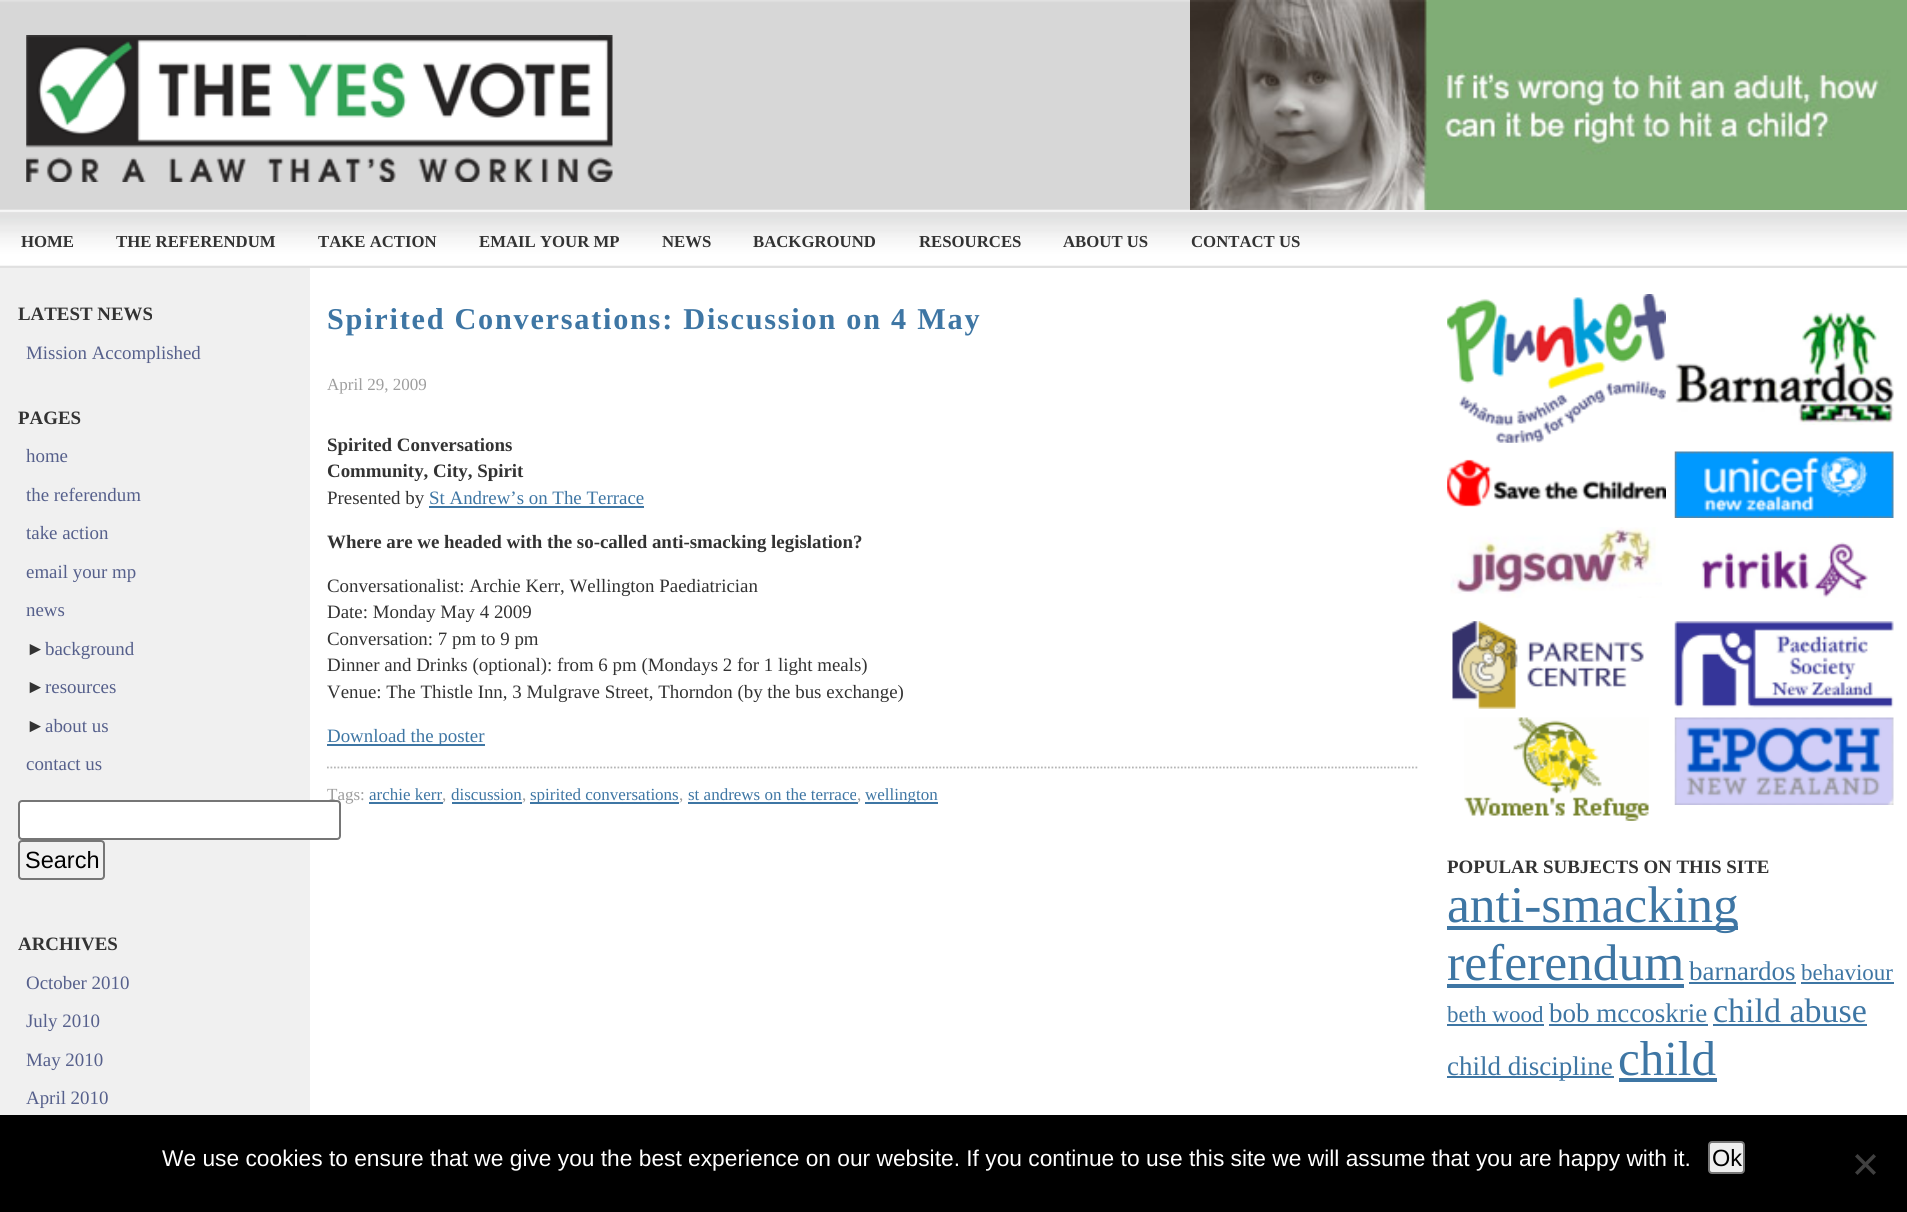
import math
import cairo


def write_spaced(ctx, x, y, s, letter, word):
	ctx.move_to(x, y)
	for ch in s:
		ctx.show_text(ch)
		ctx.rel_move_to(letter + word * (ch == ' '), 0)

def round_path(ctx, x, y, w, h, r):
	ctx.new_sub_path()
	for i, (u, v) in enumerate([(x + w - r, y + h - r), (x + r, y + h - r), (x + r, y + r), (x + w - r, y + r)]):
		ctx.arc(u, v, r, i * math.pi / 2, (i + 1) * math.pi / 2)
	ctx.close_path()

def paste(ctx, path, x, y, w, h):
	ctx.save()
	ctx.set_source_surface(cairo.ImageSurface.create_from_png(path), x, y)
	ctx.rectangle(x, y, w, h)
	ctx.fill()
	ctx.restore()

def draw(ctx):
	ctx.set_source_rgb(1, 1, 1)
	ctx.paint()
	paste(ctx, 'media/1.png', 0, 0, 1907, 268)
	paste(ctx, 'media/2.png', 26, 35, 587, 147)
	paste(ctx, 'media/3.png', 1190, 0, 717, 210)
	ctx.select_font_face('Liberation Serif', cairo.FONT_SLANT_NORMAL, cairo.FONT_WEIGHT_BOLD)
	ctx.set_font_size(16.75)
	ctx.set_source_rgb(0.2, 0.2, 0.2)
	for x, y, s in [
		(21, 247, 'HOME'),
		(116, 247, 'THE REFERENDUM'),
		(318, 247, 'TAKE ACTION'),
		(479, 247, 'EMAIL YOUR MP'),
		(662, 247, 'NEWS'),
		(753, 247, 'BACKGROUND'),
		(919, 247, 'RESOURCES'),
		(1063, 247, 'ABOUT US'),
		(1191, 247, 'CONTACT US'),
	]:
		ctx.move_to(x, y)
		ctx.show_text(s)
	ctx.set_source_rgb(0.941, 0.941, 0.941)
	ctx.rectangle(0, 268, 310, 847)
	ctx.fill()
	ctx.set_font_size(18.9)
	ctx.set_source_rgb(0.2, 0.2, 0.2)
	ctx.move_to(18, 320)
	ctx.show_text('LATEST NEWS')
	ctx.select_font_face('Liberation Serif')
	ctx.set_source_rgb(0.337, 0.376, 0.549)
	ctx.move_to(26, 359)
	ctx.show_text('Mission Accomplished')
	ctx.select_font_face('Liberation Serif', cairo.FONT_SLANT_NORMAL, cairo.FONT_WEIGHT_BOLD)
	ctx.set_source_rgb(0.2, 0.2, 0.2)
	ctx.move_to(18, 424)
	ctx.show_text('PAGES')
	ctx.select_font_face('Liberation Serif')
	ctx.set_source_rgb(0.337, 0.376, 0.549)
	for x, y, s in [
		(26, 462, 'home'),
		(26, 501, 'the referendum'),
		(26, 539, 'take action'),
		(26, 578, 'email your mp'),
		(26, 616, 'news'),
	]:
		ctx.move_to(x, y)
		ctx.show_text(s)
	ctx.set_source_rgb(0.2, 0.2, 0.2)
	ctx.move_to(26, 655)
	ctx.show_text('►')
	ctx.set_source_rgb(0.337, 0.376, 0.549)
	ctx.move_to(45, 655)
	ctx.show_text('background')
	ctx.set_source_rgb(0.2, 0.2, 0.2)
	ctx.move_to(26, 693)
	ctx.show_text('►')
	ctx.set_source_rgb(0.337, 0.376, 0.549)
	ctx.move_to(45, 693)
	ctx.show_text('resources')
	ctx.set_source_rgb(0.2, 0.2, 0.2)
	ctx.move_to(26, 732)
	ctx.show_text('►')
	ctx.set_source_rgb(0.337, 0.376, 0.549)
	ctx.move_to(45, 732)
	ctx.show_text('about us')
	ctx.move_to(26, 770)
	ctx.show_text('contact us')
	ctx.set_font_size(17)
	ctx.set_source_rgb(0.62, 0.62, 0.62)
	ctx.move_to(327, 800)
	ctx.show_text('Tags:')
	ctx.set_source_rgb(1, 1, 1)
	round_path(ctx, 19, 801, 321, 38, 3)
	ctx.fill_preserve()
	ctx.set_source_rgb(0.463, 0.463, 0.463)
	ctx.stroke()
	round_path(ctx, 19, 841, 85, 38, 3)
	ctx.stroke()
	ctx.select_font_face('Liberation Sans')
	ctx.set_font_size(23.5)
	ctx.set_source_rgb(0, 0, 0)
	ctx.move_to(25, 868)
	ctx.show_text('Search')
	ctx.select_font_face('Liberation Serif', cairo.FONT_SLANT_NORMAL, cairo.FONT_WEIGHT_BOLD)
	ctx.set_font_size(18.9)
	ctx.set_source_rgb(0.2, 0.2, 0.2)
	ctx.move_to(18, 950)
	ctx.show_text('ARCHIVES')
	ctx.select_font_face('Liberation Serif')
	ctx.set_source_rgb(0.337, 0.376, 0.549)
	for x, y, s in [
		(26, 989, 'October 2010'),
		(26, 1027, 'July 2010'),
		(26, 1066, 'May 2010'),
		(26, 1104, 'April 2010'),
	]:
		ctx.move_to(x, y)
		ctx.show_text(s)
	ctx.select_font_face('Liberation Serif', cairo.FONT_SLANT_NORMAL, cairo.FONT_WEIGHT_BOLD)
	ctx.set_font_size(30.25)
	ctx.set_source_rgb(0.243, 0.463, 0.643)
	write_spaced(ctx, 327, 329, 'Spirited Conversations: Discussion on 4 May', 1.75, 0)
	ctx.select_font_face('Liberation Serif')
	ctx.set_font_size(17)
	ctx.set_source_rgb(0.62, 0.62, 0.62)
	ctx.move_to(327, 390)
	ctx.show_text('April 29, 2009')
	ctx.select_font_face('Liberation Serif', cairo.FONT_SLANT_NORMAL, cairo.FONT_WEIGHT_BOLD)
	ctx.set_font_size(18.9)
	ctx.set_source_rgb(0.2, 0.2, 0.2)
	ctx.move_to(327, 451)
	ctx.show_text('Spirited Conversations')
	ctx.move_to(327, 477)
	ctx.show_text('Community, City, Spirit')
	ctx.select_font_face('Liberation Serif')
	ctx.move_to(327, 504)
	ctx.show_text('Presented by')
	ctx.set_source_rgb(0.243, 0.463, 0.643)
	ctx.move_to(429, 504)
	ctx.show_text('St Andrew’s on The Terrace')
	ctx.rectangle(429, 506, 215, 2)
	ctx.fill()
	ctx.select_font_face('Liberation Serif', cairo.FONT_SLANT_NORMAL, cairo.FONT_WEIGHT_BOLD)
	ctx.set_source_rgb(0.2, 0.2, 0.2)
	ctx.move_to(327, 548)
	ctx.show_text('Where are we headed with the so-called anti-smacking legislation?')
	ctx.select_font_face('Liberation Serif')
	for x, y, s in [
		(327, 592, 'Conversationalist: Archie Kerr, Wellington Paediatrician'),
		(327, 618, 'Date: Monday May 4 2009'),
		(327, 645, 'Conversation: 7 pm to 9 pm'),
		(327, 671, 'Dinner and Drinks (optional): from 6 pm (Mondays 2 for 1 light meals)'),
		(327, 698, 'Venue: The Thistle Inn, 3 Mulgrave Street, Thorndon (by the bus exchange)'),
	]:
		ctx.move_to(x, y)
		ctx.show_text(s)
	ctx.set_source_rgb(0.243, 0.463, 0.643)
	ctx.rectangle(327, 744, 158, 2)
	ctx.fill()
	ctx.move_to(327, 742)
	ctx.show_text('Download the poster')
	ctx.new_path()
	ctx.move_to(327, 767.5)
	ctx.line_to(1417.5, 767.5)
	ctx.set_source_rgb(0.706, 0.71, 0.71)
	ctx.set_line_width(1.8)
	ctx.set_dash([1.75, 1.75])
	ctx.stroke()
	ctx.set_font_size(17)
	ctx.set_source_rgb(0.243, 0.463, 0.643)
	ctx.move_to(369, 800)
	ctx.show_text('archie kerr')
	ctx.rectangle(369, 802, 74, 2)
	ctx.fill()
	ctx.set_source_rgb(0.62, 0.62, 0.62)
	ctx.move_to(442, 800)
	ctx.show_text(',')
	ctx.set_source_rgb(0.243, 0.463, 0.643)
	ctx.move_to(451, 800)
	ctx.show_text('discussion')
	ctx.rectangle(452, 802, 70, 2)
	ctx.fill()
	ctx.set_source_rgb(0.62, 0.62, 0.62)
	ctx.move_to(522, 800)
	ctx.show_text(',')
	ctx.set_source_rgb(0.243, 0.463, 0.643)
	ctx.rectangle(530, 802, 149, 2)
	ctx.fill()
	ctx.move_to(530, 800)
	ctx.show_text('spirited conversations')
	ctx.set_source_rgb(0.62, 0.62, 0.62)
	ctx.move_to(679, 800)
	ctx.show_text(',')
	ctx.set_source_rgb(0.243, 0.463, 0.643)
	ctx.move_to(688, 800)
	ctx.show_text('st andrews on the terrace')
	ctx.rectangle(688, 802, 170, 2)
	ctx.fill()
	ctx.set_source_rgb(0.62, 0.62, 0.62)
	ctx.move_to(857, 800)
	ctx.show_text(',')
	ctx.set_source_rgb(0.243, 0.463, 0.643)
	ctx.rectangle(865, 802, 73, 2)
	ctx.fill()
	ctx.move_to(865, 800)
	ctx.show_text('wellington')
	paste(ctx, 'media/4.png', 1447, 294, 219, 149)
	paste(ctx, 'media/5.png', 1675, 311, 219, 114)
	paste(ctx, 'media/6.png', 1447, 459, 219, 48)
	paste(ctx, 'media/7.png', 1674, 451, 220, 67)
	paste(ctx, 'media/8.png', 1450, 527, 212, 71)
	paste(ctx, 'media/9.png', 1701, 542, 167, 56)
	paste(ctx, 'media/10.png', 1452, 621, 192, 88)
	paste(ctx, 'media/11.png', 1674, 621, 220, 87)
	paste(ctx, 'media/12.png', 1464, 717, 185, 104)
	paste(ctx, 'media/13.png', 1674, 717, 220, 88)
	ctx.select_font_face('Liberation Serif', cairo.FONT_SLANT_NORMAL, cairo.FONT_WEIGHT_BOLD)
	ctx.set_font_size(18.9)
	ctx.set_source_rgb(0.2, 0.2, 0.2)
	ctx.move_to(1447, 873)
	ctx.show_text('POPULAR SUBJECTS ON THIS SITE')
	ctx.set_source_rgb(0.243, 0.463, 0.643)
	ctx.rectangle(1447, 926, 291, 4)
	ctx.fill()
	ctx.select_font_face('Liberation Serif')
	ctx.set_font_size(51.5)
	ctx.move_to(1447, 922)
	ctx.show_text('anti-smacking')
	ctx.move_to(1447, 980)
	ctx.show_text('referendum')
	ctx.rectangle(1447, 984, 237, 4)
	ctx.fill()
	ctx.set_font_size(27)
	ctx.move_to(1689, 980)
	ctx.show_text('barnardos')
	ctx.rectangle(1689, 982, 107, 2)
	ctx.fill()
	ctx.set_font_size(23)
	ctx.move_to(1801, 980)
	ctx.show_text('behaviour')
	ctx.rectangle(1801, 982, 93, 2)
	ctx.fill()
	ctx.move_to(1447, 1022)
	ctx.show_text('beth wood')
	ctx.rectangle(1447, 1024, 97, 2)
	ctx.fill()
	ctx.set_font_size(27)
	ctx.move_to(1549, 1022)
	ctx.show_text('bob mccoskrie')
	ctx.rectangle(1549, 1024, 159, 2)
	ctx.fill()
	ctx.set_font_size(34)
	ctx.move_to(1713, 1022)
	ctx.show_text('child abuse')
	ctx.rectangle(1713, 1024, 154, 2)
	ctx.fill()
	ctx.rectangle(1447, 1076, 167, 2)
	ctx.fill()
	ctx.set_font_size(27)
	ctx.move_to(1447, 1075)
	ctx.show_text('child discipline')
	ctx.set_font_size(49)
	ctx.move_to(1618, 1075)
	ctx.show_text('child')
	ctx.rectangle(1619, 1078, 98, 4)
	ctx.fill()
	ctx.set_source_rgb(0, 0, 0)
	ctx.rectangle(0, 1115, 1907, 97)
	ctx.fill()
	ctx.select_font_face('Liberation Sans')
	ctx.set_font_size(22.75)
	ctx.set_source_rgb(1, 1, 1)
	ctx.move_to(162, 1166)
	ctx.show_text('We use cookies to ensure that we give you the best experience on our website. If you continue to use this site we will assume that you are happy with it.')
	ctx.set_source_rgb(0.937, 0.937, 0.937)
	round_path(ctx, 1709, 1142, 35, 31, 3)
	ctx.fill_preserve()
	ctx.set_source_rgb(0.463, 0.463, 0.463)
	ctx.set_line_width(2)
	ctx.set_dash([])
	ctx.stroke()
	ctx.set_font_size(23.5)
	ctx.set_source_rgb(0, 0, 0)
	ctx.move_to(1712, 1166)
	ctx.show_text('Ok')
	ctx.set_source_rgb(0.251, 0.251, 0.251)
	ctx.new_path()
	ctx.move_to(1873.5, 1154)
	ctx.line_to(1876, 1156.5)
	ctx.line_to(1857.5, 1175)
	ctx.line_to(1855, 1172.5)
	ctx.close_path()
	ctx.fill()
	ctx.new_path()
	ctx.move_to(1855, 1156.5)
	ctx.line_to(1857.5, 1154)
	ctx.line_to(1876, 1172.5)
	ctx.line_to(1873.5, 1175)
	ctx.close_path()
	ctx.fill()


surface = cairo.ImageSurface(cairo.FORMAT_RGB24, 1907, 1212)
ctx = cairo.Context(surface)
options = cairo.FontOptions()
options.set_hint_metrics(cairo.HINT_METRICS_OFF)
options.set_hint_style(cairo.HINT_STYLE_NONE)
ctx.set_font_options(options)
ctx.set_miter_limit(4)
draw(ctx)
surface.write_to_png('image.png')
